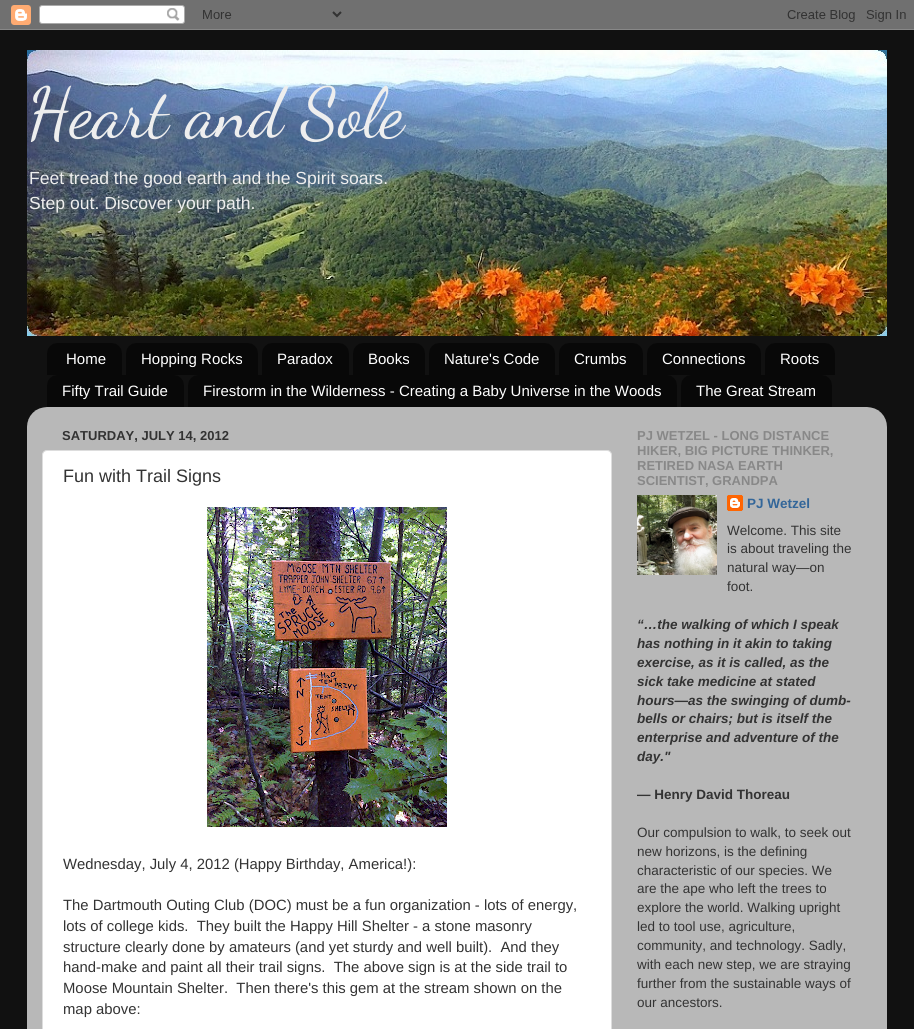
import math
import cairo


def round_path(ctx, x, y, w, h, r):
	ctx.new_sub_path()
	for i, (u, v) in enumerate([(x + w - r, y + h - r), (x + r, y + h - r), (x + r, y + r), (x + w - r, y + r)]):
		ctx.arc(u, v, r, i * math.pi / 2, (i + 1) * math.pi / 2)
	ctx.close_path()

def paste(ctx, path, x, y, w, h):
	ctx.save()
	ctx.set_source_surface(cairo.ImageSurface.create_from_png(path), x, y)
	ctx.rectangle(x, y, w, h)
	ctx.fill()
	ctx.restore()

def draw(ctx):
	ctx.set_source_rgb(0.067, 0.067, 0.067)
	ctx.paint()
	paste(ctx, 'media/1.png', 0, 0, 914, 30)
	paste(ctx, 'media/2.png', 27, 50, 860, 286)
	ctx.select_font_face('Dancing Script')
	ctx.set_font_size(70)
	ctx.set_source_rgb(0.933, 0.933, 0.933)
	ctx.move_to(27, 136)
	ctx.show_text('Heart and Sole')
	ctx.select_font_face('Liberation Sans')
	ctx.set_font_size(17.55)
	ctx.move_to(29, 184)
	ctx.show_text('Feet tread the good earth and the Spirit soars.')
	ctx.move_to(29, 209)
	ctx.show_text('Step out. Discover your path.')
	paste(ctx, 'media/3.png', 47, 343, 75, 32)
	ctx.set_font_size(15)
	ctx.set_source_rgb(1, 1, 1)
	ctx.move_to(66, 364)
	ctx.show_text('Home')
	paste(ctx, 'media/4.png', 126, 343, 132, 32)
	ctx.move_to(141, 364)
	ctx.show_text('Hopping Rocks')
	paste(ctx, 'media/5.png', 262, 343, 87, 32)
	ctx.move_to(277, 364)
	ctx.show_text('Paradox')
	paste(ctx, 'media/6.png', 353, 343, 72, 32)
	ctx.move_to(368, 364)
	ctx.show_text('Books')
	paste(ctx, 'media/7.png', 429, 343, 126, 32)
	ctx.move_to(444, 364)
	ctx.show_text('Nature\'s Code')
	paste(ctx, 'media/8.png', 559, 343, 84, 32)
	ctx.move_to(574, 364)
	ctx.show_text('Crumbs')
	paste(ctx, 'media/9.png', 647, 343, 114, 32)
	ctx.move_to(662, 364)
	ctx.show_text('Connections')
	paste(ctx, 'media/10.png', 765, 343, 70, 32)
	ctx.move_to(780, 364)
	ctx.show_text('Roots')
	paste(ctx, 'media/11.png', 47, 375, 137, 32)
	ctx.move_to(62, 396)
	ctx.show_text('Fifty Trail Guide')
	paste(ctx, 'media/12.png', 188, 375, 489, 32)
	ctx.move_to(203, 396)
	ctx.show_text('Firestorm in the Wilderness - Creating a Baby Universe in the Woods')
	paste(ctx, 'media/13.png', 681, 375, 151, 32)
	ctx.move_to(696, 396)
	ctx.show_text('The Great Stream')
	paste(ctx, 'media/14.png', 27, 407, 860, 622)
	ctx.select_font_face('Liberation Sans', cairo.FONT_SLANT_NORMAL, cairo.FONT_WEIGHT_BOLD)
	ctx.set_font_size(13)
	ctx.set_source_rgb(0.2, 0.2, 0.2)
	ctx.move_to(62, 440)
	ctx.show_text('SATURDAY, JULY 14, 2012')
	ctx.set_source_rgb(1, 1, 1)
	round_path(ctx, 42.5, 450.5, 569, 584, 4.5)
	ctx.fill_preserve()
	ctx.set_source_rgb(0.867, 0.867, 0.867)
	ctx.set_line_width(1)
	ctx.stroke()
	ctx.select_font_face('Liberation Sans')
	ctx.set_font_size(18)
	ctx.set_source_rgb(0.2, 0.2, 0.2)
	ctx.move_to(63, 482)
	ctx.show_text('Fun with Trail Signs')
	paste(ctx, 'media/15.png', 207, 507, 240, 320)
	ctx.set_font_size(14.85)
	for x, y, s in [
		(63, 869, 'Wednesday, July 4, 2012 (Happy Birthday, America!):'),
		(63, 910, 'The Dartmouth Outing Club (DOC) must be a fun organization - lots of energy,'),
		(63, 931, 'lots of college kids.  They built the Happy Hill Shelter - a stone masonry'),
		(63, 952, 'structure clearly done by amateurs (and yet sturdy and well built).  And they'),
		(63, 972, 'hand-make and paint all their trail signs.  The above sign is at the side trail to'),
		(63, 993, 'Moose Mountain Shelter.  Then there\'s this gem at the stream shown on the'),
		(63, 1014, 'map above:'),
	]:
		ctx.move_to(x, y)
		ctx.show_text(s)
	ctx.select_font_face('Liberation Sans', cairo.FONT_SLANT_NORMAL, cairo.FONT_WEIGHT_BOLD)
	ctx.set_font_size(13)
	ctx.set_source_rgb(0.533, 0.533, 0.533)
	for x, y, s in [
		(637, 440, 'PJ WETZEL - LONG DISTANCE'),
		(637, 455, 'HIKER, BIG PICTURE THINKER,'),
		(637, 470, 'RETIRED NASA EARTH'),
		(637, 485, 'SCIENTIST, GRANDPA'),
	]:
		ctx.move_to(x, y)
		ctx.show_text(s)
	paste(ctx, 'media/16.png', 637, 495, 80, 80)
	paste(ctx, 'media/17.png', 727, 495, 16, 16)
	ctx.set_font_size(13.5)
	ctx.set_source_rgb(0.2, 0.4, 0.6)
	ctx.move_to(747, 508)
	ctx.show_text('PJ Wetzel')
	ctx.select_font_face('Liberation Sans')
	ctx.set_source_rgb(0.2, 0.2, 0.2)
	for x, y, s in [
		(727, 535, 'Welcome. This site'),
		(727, 553, 'is about traveling the'),
		(727, 572, 'natural way—on'),
		(727, 591, 'foot.'),
	]:
		ctx.move_to(x, y)
		ctx.show_text(s)
	ctx.select_font_face('Liberation Sans', cairo.FONT_SLANT_ITALIC, cairo.FONT_WEIGHT_BOLD)
	for x, y, s in [
		(637, 629, '“…the walking of which I speak'),
		(637, 648, 'has nothing in it akin to taking'),
		(637, 667, 'exercise, as it is called, as the'),
		(637, 686, 'sick take medicine at stated'),
		(637, 705, 'hours—as the swinging of dumb-'),
		(637, 723, 'bells or chairs; but is itself the'),
		(637, 742, 'enterprise and adventure of the'),
		(637, 761, 'day."'),
	]:
		ctx.move_to(x, y)
		ctx.show_text(s)
	ctx.select_font_face('Liberation Sans', cairo.FONT_SLANT_NORMAL, cairo.FONT_WEIGHT_BOLD)
	ctx.move_to(637, 799)
	ctx.show_text('— Henry David Thoreau')
	ctx.select_font_face('Liberation Sans')
	for x, y, s in [
		(637, 837, 'Our compulsion to walk, to seek out'),
		(637, 856, 'new horizons, is the defining'),
		(637, 875, 'characteristic of our species. We'),
		(637, 893, 'are the ape who left the trees to'),
		(637, 912, 'explore the world. Walking upright'),
		(637, 931, 'led to tool use, agriculture,'),
		(637, 950, 'community, and technology. Sadly,'),
		(637, 969, 'with each new step, we are straying'),
		(637, 988, 'further from the sustainable ways of'),
		(637, 1007, 'our ancestors.'),
	]:
		ctx.move_to(x, y)
		ctx.show_text(s)


surface = cairo.ImageSurface(cairo.FORMAT_RGB24, 914, 1029)
ctx = cairo.Context(surface)
options = cairo.FontOptions()
options.set_hint_metrics(cairo.HINT_METRICS_OFF)
options.set_hint_style(cairo.HINT_STYLE_NONE)
ctx.set_font_options(options)
ctx.set_miter_limit(4)
draw(ctx)
surface.write_to_png('image.png')
